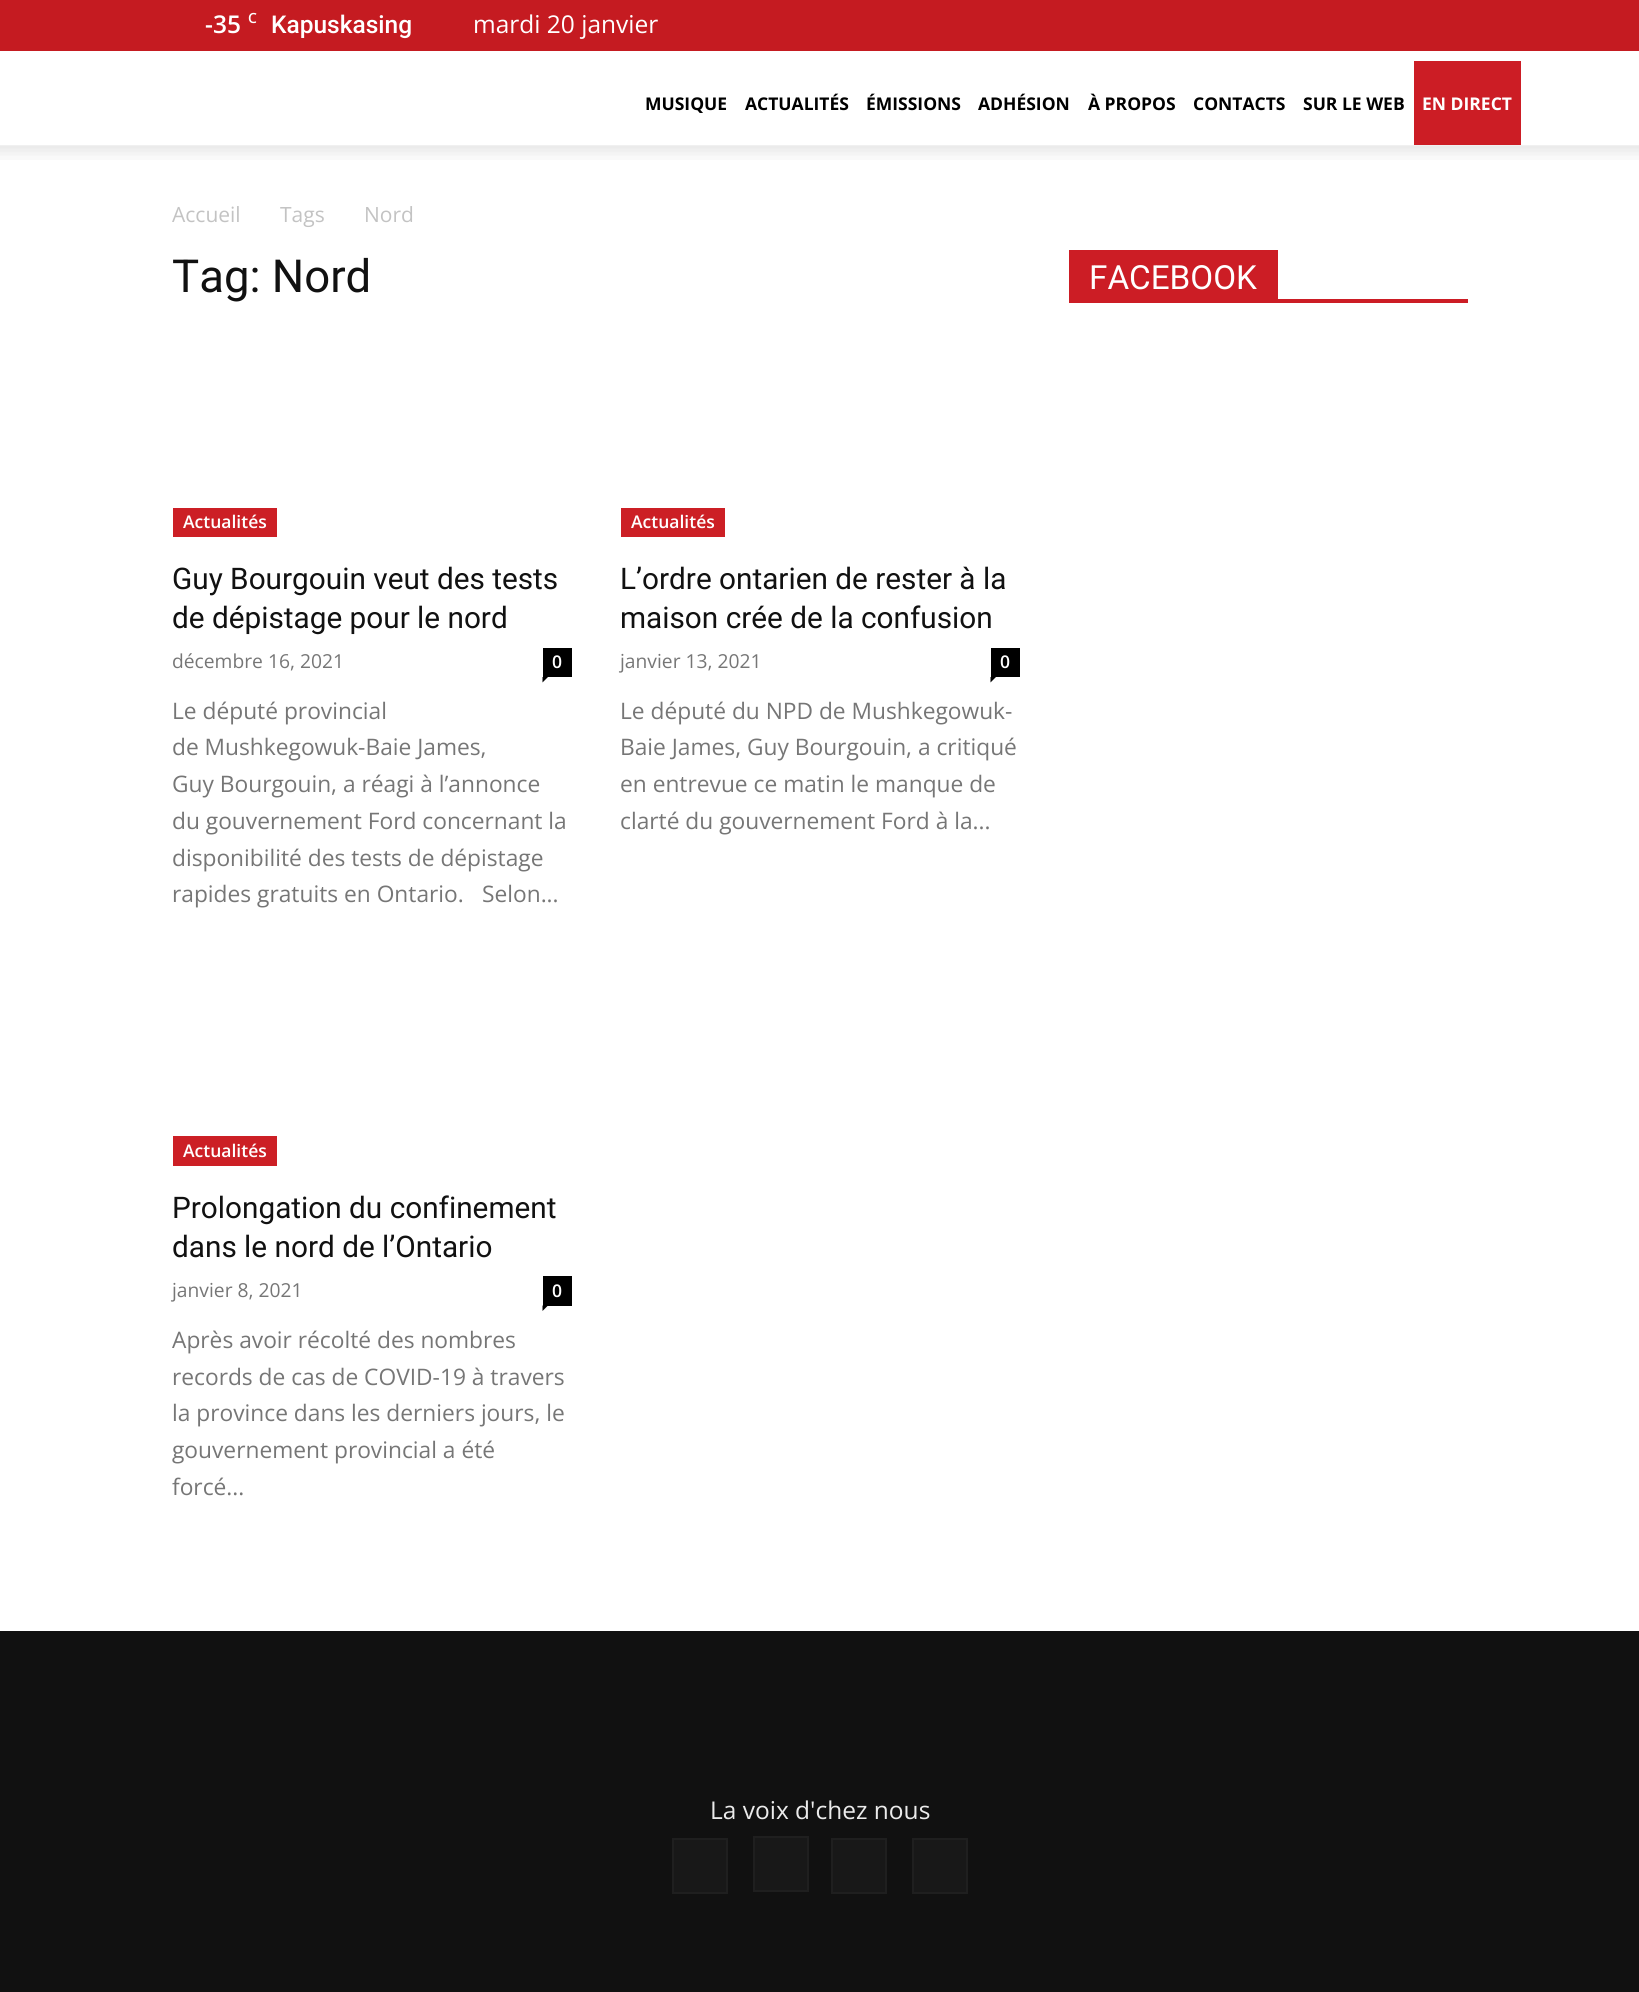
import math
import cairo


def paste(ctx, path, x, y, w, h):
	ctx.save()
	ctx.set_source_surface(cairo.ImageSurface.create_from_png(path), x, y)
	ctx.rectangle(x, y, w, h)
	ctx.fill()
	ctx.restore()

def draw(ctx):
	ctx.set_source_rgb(1, 1, 1)
	ctx.paint()
	ctx.set_source_rgb(0.773, 0.106, 0.129)
	ctx.rectangle(0, 0, 1639, 51)
	ctx.fill()
	ctx.select_font_face('Open Sans SemiBold')
	ctx.set_font_size(24.5)
	ctx.set_source_rgb(1, 1, 1)
	ctx.move_to(205, 33)
	ctx.show_text('-35')
	ctx.set_font_size(14)
	ctx.move_to(248, 23)
	ctx.show_text('C')
	ctx.select_font_face('Roboto Medium')
	ctx.set_font_size(24.5)
	ctx.move_to(271, 33)
	ctx.show_text('Kapuskasing')
	ctx.select_font_face('Open Sans')
	ctx.move_to(473, 33)
	ctx.show_text('mardi 20 janvier')
	ctx.select_font_face('Open Sans', cairo.FONT_SLANT_NORMAL, cairo.FONT_WEIGHT_BOLD)
	ctx.set_font_size(17.5)
	ctx.set_source_rgb(0, 0, 0)
	for x, y, s in [
		(645, 110, 'MUSIQUE'),
		(745, 110, 'ACTUALITÉS'),
		(866, 110, 'ÉMISSIONS'),
		(978, 110, 'ADHÉSION'),
		(1088, 110, 'À PROPOS'),
		(1193, 110, 'CONTACTS'),
		(1303, 110, 'SUR LE WEB'),
	]:
		ctx.move_to(x, y)
		ctx.show_text(s)
	ctx.set_source_rgb(0.8, 0.114, 0.145)
	ctx.rectangle(1414, 61, 107, 84)
	ctx.fill()
	ctx.set_source_rgb(1, 1, 1)
	ctx.move_to(1422, 110)
	ctx.show_text('EN DIRECT')
	paste(ctx, 'media/1.png', 0, 145, 1639, 15)
	ctx.select_font_face('Open Sans')
	ctx.set_font_size(21)
	ctx.set_source_rgb(0.765, 0.765, 0.765)
	for x, y, s in [
		(172, 222, 'Accueil'),
		(280, 222, 'Tags'),
		(364, 222, 'Nord'),
	]:
		ctx.move_to(x, y)
		ctx.show_text(s)
	ctx.select_font_face('Roboto')
	ctx.set_font_size(45.5)
	ctx.set_source_rgb(0.067, 0.067, 0.067)
	ctx.move_to(172, 292)
	ctx.show_text('Tag: Nord')
	ctx.set_source_rgb(0.8, 0.122, 0.145)
	ctx.rectangle(173, 508, 104, 29)
	ctx.fill()
	ctx.select_font_face('Open Sans SemiBold')
	ctx.set_font_size(17.5)
	ctx.set_source_rgb(1, 1, 1)
	ctx.move_to(183, 528)
	ctx.show_text('Actualités')
	ctx.select_font_face('Roboto')
	ctx.set_font_size(29.75)
	ctx.set_source_rgb(0.067, 0.067, 0.067)
	ctx.move_to(172, 589)
	ctx.show_text('Guy Bourgouin veut des tests')
	ctx.move_to(172, 628)
	ctx.show_text('de dépistage pour le nord')
	ctx.select_font_face('Open Sans')
	ctx.set_font_size(19.25)
	ctx.set_source_rgb(0.463, 0.463, 0.463)
	ctx.move_to(172, 668)
	ctx.show_text('décembre 16, 2021')
	ctx.set_source_rgb(0, 0, 0)
	ctx.rectangle(543, 648, 29, 29)
	ctx.fill()
	ctx.select_font_face('Open Sans SemiBold')
	ctx.set_font_size(17.5)
	ctx.set_source_rgb(1, 1, 1)
	ctx.move_to(552, 668)
	ctx.show_text('0')
	ctx.set_source_rgb(0, 0, 0)
	ctx.new_path()
	ctx.move_to(542.5, 677)
	ctx.line_to(548, 677)
	ctx.line_to(542.5, 682.5)
	ctx.close_path()
	ctx.fill()
	ctx.select_font_face('Open Sans')
	ctx.set_font_size(22.75)
	ctx.set_source_rgb(0.463, 0.463, 0.463)
	for x, y, s in [
		(172, 719, 'Le député provincial'),
		(172, 755, 'de Mushkegowuk-Baie James,'),
		(172, 792, 'Guy Bourgouin, a réagi à l’annonce'),
		(172, 829, 'du gouvernement Ford concernant la'),
		(172, 866, 'disponibilité des tests de dépistage'),
		(172, 902, 'rapides gratuits en Ontario.'),
		(482, 902, 'Selon...'),
	]:
		ctx.move_to(x, y)
		ctx.show_text(s)
	ctx.set_source_rgb(0.8, 0.122, 0.145)
	ctx.rectangle(621, 508, 104, 29)
	ctx.fill()
	ctx.select_font_face('Open Sans SemiBold')
	ctx.set_font_size(17.5)
	ctx.set_source_rgb(1, 1, 1)
	ctx.move_to(631, 528)
	ctx.show_text('Actualités')
	ctx.select_font_face('Roboto')
	ctx.set_font_size(29.75)
	ctx.set_source_rgb(0.067, 0.067, 0.067)
	ctx.move_to(620, 589)
	ctx.show_text('L’ordre ontarien de rester à la')
	ctx.move_to(620, 628)
	ctx.show_text('maison crée de la confusion')
	ctx.select_font_face('Open Sans')
	ctx.set_font_size(19.25)
	ctx.set_source_rgb(0.463, 0.463, 0.463)
	ctx.move_to(620, 668)
	ctx.show_text('janvier 13, 2021')
	ctx.set_source_rgb(0, 0, 0)
	ctx.rectangle(991, 648, 29, 29)
	ctx.fill()
	ctx.select_font_face('Open Sans SemiBold')
	ctx.set_font_size(17.5)
	ctx.set_source_rgb(1, 1, 1)
	ctx.move_to(1000, 668)
	ctx.show_text('0')
	ctx.set_source_rgb(0, 0, 0)
	ctx.new_path()
	ctx.move_to(990.5, 677)
	ctx.line_to(996, 677)
	ctx.line_to(990.5, 682.5)
	ctx.close_path()
	ctx.fill()
	ctx.select_font_face('Open Sans')
	ctx.set_font_size(22.75)
	ctx.set_source_rgb(0.463, 0.463, 0.463)
	for x, y, s in [
		(620, 719, 'Le député du NPD de Mushkegowuk-'),
		(620, 755, 'Baie James, Guy Bourgouin, a critiqué'),
		(620, 792, 'en entrevue ce matin le manque de'),
		(620, 829, 'clarté du gouvernement Ford à la...'),
	]:
		ctx.move_to(x, y)
		ctx.show_text(s)
	ctx.set_source_rgb(0.8, 0.122, 0.145)
	ctx.rectangle(173, 1136, 104, 30)
	ctx.fill()
	ctx.select_font_face('Open Sans SemiBold')
	ctx.set_font_size(17.5)
	ctx.set_source_rgb(1, 1, 1)
	ctx.move_to(183, 1157)
	ctx.show_text('Actualités')
	ctx.select_font_face('Roboto')
	ctx.set_font_size(29.75)
	ctx.set_source_rgb(0.067, 0.067, 0.067)
	ctx.move_to(172, 1218)
	ctx.show_text('Prolongation du confinement')
	ctx.move_to(172, 1257)
	ctx.show_text('dans le nord de l’Ontario')
	ctx.select_font_face('Open Sans')
	ctx.set_font_size(19.25)
	ctx.set_source_rgb(0.463, 0.463, 0.463)
	ctx.move_to(172, 1297)
	ctx.show_text('janvier 8, 2021')
	ctx.set_source_rgb(0, 0, 0)
	ctx.rectangle(543, 1276, 29, 30)
	ctx.fill()
	ctx.select_font_face('Open Sans SemiBold')
	ctx.set_font_size(17.5)
	ctx.set_source_rgb(1, 1, 1)
	ctx.move_to(552, 1297)
	ctx.show_text('0')
	ctx.set_source_rgb(0, 0, 0)
	ctx.new_path()
	ctx.move_to(542.5, 1305.5)
	ctx.line_to(548, 1305.5)
	ctx.line_to(542.5, 1311)
	ctx.close_path()
	ctx.fill()
	ctx.select_font_face('Open Sans')
	ctx.set_font_size(22.75)
	ctx.set_source_rgb(0.463, 0.463, 0.463)
	for x, y, s in [
		(172, 1348, 'Après avoir récolté des nombres'),
		(172, 1385, 'records de cas de COVID-19 à travers'),
		(172, 1421, 'la province dans les derniers jours, le'),
		(172, 1458, 'gouvernement provincial a été'),
		(172, 1495, 'forcé...'),
	]:
		ctx.move_to(x, y)
		ctx.show_text(s)
	ctx.set_source_rgb(0.8, 0.114, 0.145)
	ctx.rectangle(1069, 299, 399, 4)
	ctx.fill()
	ctx.rectangle(1069, 250, 209, 49)
	ctx.fill()
	ctx.select_font_face('Roboto')
	ctx.set_font_size(33.25)
	ctx.set_source_rgb(1, 1, 1)
	ctx.move_to(1089, 289)
	ctx.show_text('FACEBOOK')
	ctx.set_source_rgb(0.067, 0.067, 0.067)
	ctx.rectangle(0, 1631, 1639, 361)
	ctx.fill()
	ctx.select_font_face('Open Sans')
	ctx.set_font_size(24.5)
	ctx.set_source_rgb(0.918, 0.918, 0.918)
	ctx.move_to(710, 1819)
	ctx.show_text('La voix d\'chez nous')
	ctx.set_source_rgb(0.094, 0.094, 0.094)
	ctx.rectangle(673, 1839, 54, 54)
	ctx.fill_preserve()
	ctx.set_source_rgb(0.122, 0.122, 0.122)
	ctx.stroke()
	ctx.set_source_rgb(0.094, 0.094, 0.094)
	ctx.rectangle(754, 1837, 54, 54)
	ctx.fill_preserve()
	ctx.set_source_rgb(0.122, 0.122, 0.122)
	ctx.stroke()
	ctx.set_source_rgb(0.094, 0.094, 0.094)
	ctx.rectangle(832, 1839, 54, 54)
	ctx.fill_preserve()
	ctx.set_source_rgb(0.122, 0.122, 0.122)
	ctx.stroke()
	ctx.set_source_rgb(0.094, 0.094, 0.094)
	ctx.rectangle(913, 1839, 54, 54)
	ctx.fill_preserve()
	ctx.set_source_rgb(0.122, 0.122, 0.122)
	ctx.stroke()


surface = cairo.ImageSurface(cairo.FORMAT_RGB24, 1639, 1992)
ctx = cairo.Context(surface)
options = cairo.FontOptions()
options.set_hint_metrics(cairo.HINT_METRICS_OFF)
options.set_hint_style(cairo.HINT_STYLE_NONE)
ctx.set_font_options(options)
ctx.set_miter_limit(4)
draw(ctx)
surface.write_to_png('image.png')
